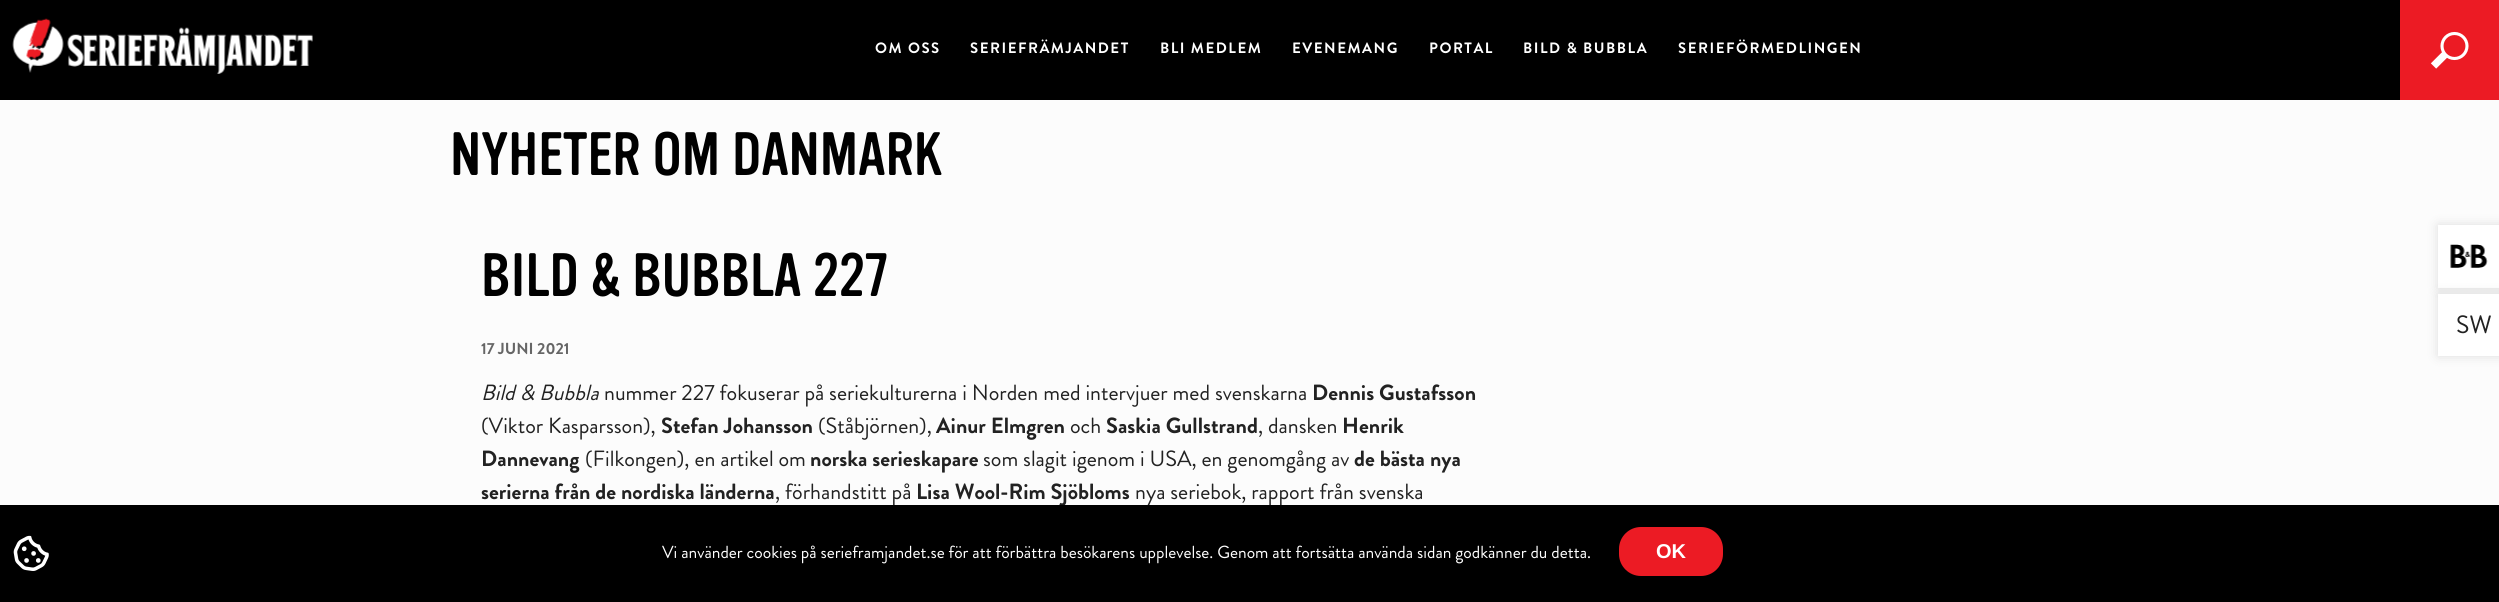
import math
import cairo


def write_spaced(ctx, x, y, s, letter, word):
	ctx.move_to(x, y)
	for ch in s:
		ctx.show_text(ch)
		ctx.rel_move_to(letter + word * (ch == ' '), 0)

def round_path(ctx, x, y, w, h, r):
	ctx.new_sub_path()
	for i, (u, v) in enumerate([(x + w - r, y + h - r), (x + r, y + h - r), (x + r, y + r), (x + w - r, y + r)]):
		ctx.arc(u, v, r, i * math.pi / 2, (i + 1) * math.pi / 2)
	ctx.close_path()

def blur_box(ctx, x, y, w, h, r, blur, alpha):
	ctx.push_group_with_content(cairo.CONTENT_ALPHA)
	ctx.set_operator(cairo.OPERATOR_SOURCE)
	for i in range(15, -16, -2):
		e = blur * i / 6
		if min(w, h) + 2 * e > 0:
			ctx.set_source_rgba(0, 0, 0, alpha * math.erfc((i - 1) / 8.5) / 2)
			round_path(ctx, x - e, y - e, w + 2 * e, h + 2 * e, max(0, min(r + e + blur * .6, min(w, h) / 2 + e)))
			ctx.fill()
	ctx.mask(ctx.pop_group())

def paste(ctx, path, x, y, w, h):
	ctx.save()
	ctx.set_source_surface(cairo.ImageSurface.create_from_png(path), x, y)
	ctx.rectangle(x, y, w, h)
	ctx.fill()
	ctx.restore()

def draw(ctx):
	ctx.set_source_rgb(0.988, 0.988, 0.988)
	ctx.paint()
	ctx.set_source_rgb(0, 0, 0)
	ctx.rectangle(0, 0, 2400, 100)
	ctx.fill()
	paste(ctx, 'media/1.png', 12, 18, 301, 56)
	ctx.select_font_face('Brandon Grotesque', cairo.FONT_SLANT_NORMAL, cairo.FONT_WEIGHT_BOLD)
	ctx.set_font_size(15)
	ctx.set_source_rgb(1, 1, 1)
	for x, y, s in [
		(875, 53, 'OM OSS'),
		(970, 53, 'SERIEFRÄMJANDET'),
		(1160, 53, 'BLI MEDLEM'),
		(1292, 53, 'EVENEMANG'),
		(1429, 53, 'PORTAL'),
		(1523, 53, 'BILD & BUBBLA'),
		(1678, 53, 'SERIEFÖRMEDLINGEN'),
	]:
		write_spaced(ctx, x, y, s, 1.5, 0)
	ctx.set_source_rgb(0.925, 0.106, 0.141)
	ctx.rectangle(2400, 0, 99, 100)
	ctx.fill()
	ctx.arc(2454.5, 46, 12.5, 0, 2 * math.pi)
	ctx.set_source_rgb(1, 1, 1)
	ctx.set_line_width(3.1)
	ctx.stroke()
	ctx.new_path()
	ctx.move_to(2445.5, 54)
	ctx.line_to(2433.5, 66)
	ctx.set_line_width(7.5)
	ctx.stroke()
	ctx.select_font_face('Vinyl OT')
	ctx.set_font_size(60)
	ctx.set_source_rgb(0, 0, 0)
	ctx.move_to(450, 175)
	ctx.show_text('NYHETER OM DANMARK')
	ctx.move_to(481, 296)
	ctx.show_text('BILD & BUBBLA 227')
	ctx.select_font_face('Brandon Grotesque', cairo.FONT_SLANT_NORMAL, cairo.FONT_WEIGHT_BOLD)
	ctx.set_font_size(16)
	ctx.set_source_rgb(0.4, 0.4, 0.4)
	ctx.move_to(481, 354)
	ctx.show_text('17 JUNI 2021')
	ctx.select_font_face('Brandon Grotesque', cairo.FONT_SLANT_ITALIC)
	ctx.set_font_size(22)
	ctx.set_source_rgb(0.133, 0.133, 0.133)
	ctx.move_to(481, 400)
	ctx.show_text('Bild & Bubbla')
	ctx.select_font_face('Brandon Grotesque')
	ctx.move_to(604, 400)
	ctx.show_text('nummer 227 fokuserar på seriekulturerna i Norden med intervjuer med svenskarna')
	ctx.select_font_face('Brandon Grotesque', cairo.FONT_SLANT_NORMAL, cairo.FONT_WEIGHT_BOLD)
	ctx.move_to(1312, 400)
	ctx.show_text('Dennis Gustafsson')
	ctx.select_font_face('Brandon Grotesque')
	ctx.move_to(481, 433)
	ctx.show_text('(Viktor Kasparsson),')
	ctx.select_font_face('Brandon Grotesque', cairo.FONT_SLANT_NORMAL, cairo.FONT_WEIGHT_BOLD)
	ctx.move_to(661, 433)
	ctx.show_text('Stefan Johansson')
	ctx.select_font_face('Brandon Grotesque')
	ctx.move_to(818, 433)
	ctx.show_text('(Ståbjörnen),')
	ctx.select_font_face('Brandon Grotesque', cairo.FONT_SLANT_NORMAL, cairo.FONT_WEIGHT_BOLD)
	ctx.move_to(936, 433)
	ctx.show_text('Ainur Elmgren')
	ctx.select_font_face('Brandon Grotesque')
	ctx.move_to(1070, 433)
	ctx.show_text('och')
	ctx.select_font_face('Brandon Grotesque', cairo.FONT_SLANT_NORMAL, cairo.FONT_WEIGHT_BOLD)
	ctx.move_to(1106, 433)
	ctx.show_text('Saskia Gullstrand')
	ctx.select_font_face('Brandon Grotesque')
	ctx.move_to(1258, 433)
	ctx.show_text(', dansken')
	ctx.select_font_face('Brandon Grotesque', cairo.FONT_SLANT_NORMAL, cairo.FONT_WEIGHT_BOLD)
	ctx.move_to(1342, 433)
	ctx.show_text('Henrik')
	ctx.move_to(481, 466)
	ctx.show_text('Dannevang')
	ctx.select_font_face('Brandon Grotesque')
	ctx.move_to(585, 466)
	ctx.show_text('(Filkongen), en artikel om')
	ctx.select_font_face('Brandon Grotesque', cairo.FONT_SLANT_NORMAL, cairo.FONT_WEIGHT_BOLD)
	ctx.move_to(810, 466)
	ctx.show_text('norska serieskapare')
	ctx.select_font_face('Brandon Grotesque')
	ctx.move_to(983, 466)
	ctx.show_text('som slagit igenom i USA, en genomgång av')
	ctx.select_font_face('Brandon Grotesque', cairo.FONT_SLANT_NORMAL, cairo.FONT_WEIGHT_BOLD)
	ctx.move_to(1354, 466)
	ctx.show_text('de bästa nya')
	ctx.move_to(481, 499)
	ctx.show_text('serierna från de nordiska länderna')
	ctx.select_font_face('Brandon Grotesque')
	ctx.move_to(775, 499)
	ctx.show_text(', förhandstitt på')
	ctx.select_font_face('Brandon Grotesque', cairo.FONT_SLANT_NORMAL, cairo.FONT_WEIGHT_BOLD)
	ctx.move_to(916, 499)
	ctx.show_text('Lisa Wool-Rim Sjöbloms')
	ctx.select_font_face('Brandon Grotesque')
	ctx.move_to(1135, 499)
	ctx.show_text('nya seriebok, rapport från svenska')
	ctx.set_source_rgb(0, 0, 0)
	blur_box(ctx, 2438, 225, 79, 63, 0, 6, 0.12)
	ctx.set_source_rgb(1, 1, 1)
	ctx.rectangle(2438, 225, 61, 63)
	ctx.fill()
	paste(ctx, 'media/2.png', 2450, 244, 38, 24)
	ctx.set_source_rgb(0, 0, 0)
	blur_box(ctx, 2438, 294, 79, 62, 0, 6, 0.12)
	ctx.set_source_rgb(1, 1, 1)
	ctx.rectangle(2438, 294, 61, 62)
	ctx.fill()
	ctx.set_font_size(25)
	ctx.set_source_rgb(0.133, 0.133, 0.133)
	ctx.move_to(2456, 333)
	ctx.show_text('SW')
	ctx.set_source_rgb(0, 0, 0)
	ctx.rectangle(0, 505, 2499, 97)
	ctx.fill()
	paste(ctx, 'media/3.png', 13, 535, 36, 36)
	ctx.set_font_size(17.5)
	ctx.set_source_rgb(1, 1, 1)
	ctx.move_to(662, 558)
	ctx.show_text('Vi använder cookies på serieframjandet.se för att förbättra besökarens upplevelse. Genom att fortsätta använda sidan godkänner du detta.')
	ctx.set_source_rgb(0.925, 0.106, 0.141)
	round_path(ctx, 1617.5, 525.5, 107, 52, 23.5)
	ctx.fill_preserve()
	ctx.set_source_rgb(0, 0, 0)
	ctx.set_line_width(3)
	ctx.stroke()
	ctx.select_font_face('Liberation Sans', cairo.FONT_SLANT_NORMAL, cairo.FONT_WEIGHT_BOLD)
	ctx.set_font_size(20)
	ctx.set_source_rgb(1, 1, 1)
	ctx.move_to(1656, 558)
	ctx.show_text('OK')


surface = cairo.ImageSurface(cairo.FORMAT_RGB24, 2499, 602)
ctx = cairo.Context(surface)
options = cairo.FontOptions()
options.set_hint_metrics(cairo.HINT_METRICS_OFF)
options.set_hint_style(cairo.HINT_STYLE_NONE)
ctx.set_font_options(options)
ctx.set_miter_limit(4)
draw(ctx)
surface.write_to_png('image.png')
